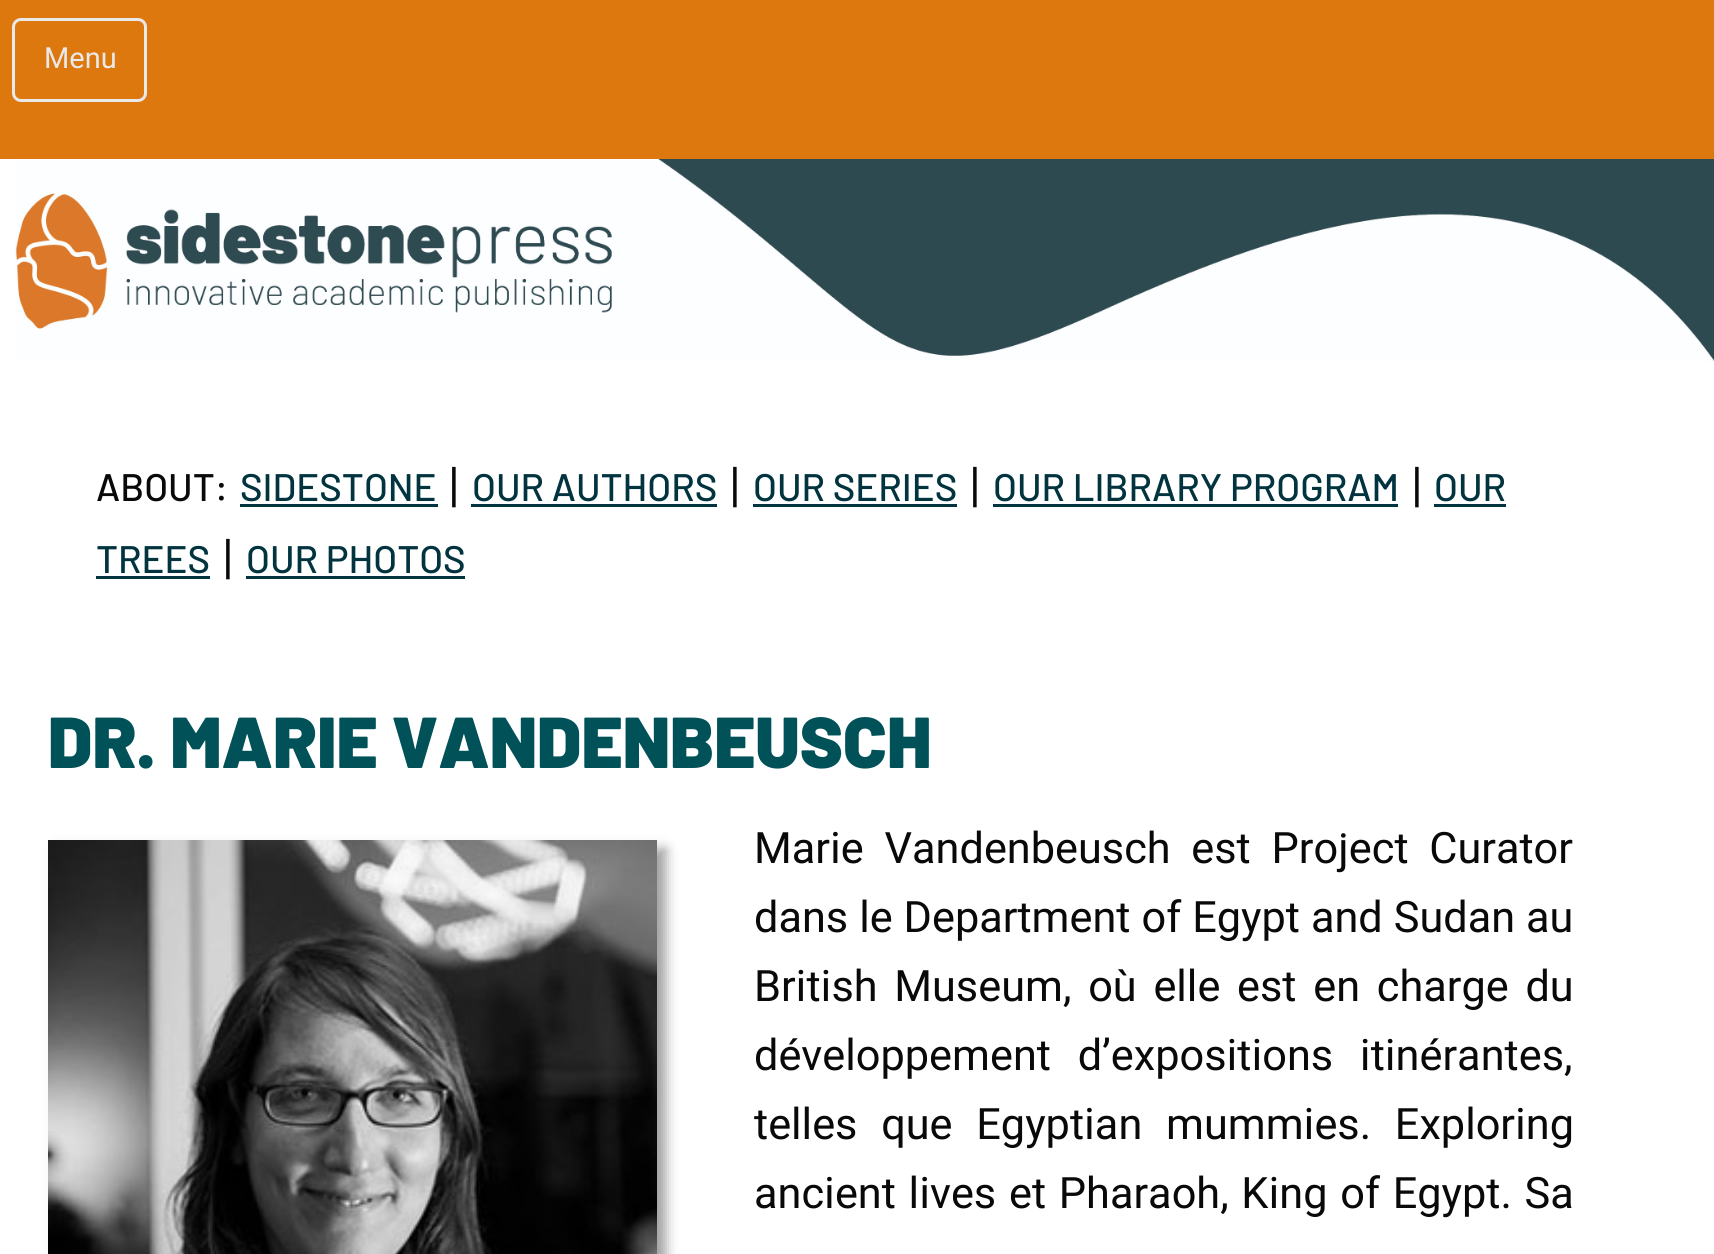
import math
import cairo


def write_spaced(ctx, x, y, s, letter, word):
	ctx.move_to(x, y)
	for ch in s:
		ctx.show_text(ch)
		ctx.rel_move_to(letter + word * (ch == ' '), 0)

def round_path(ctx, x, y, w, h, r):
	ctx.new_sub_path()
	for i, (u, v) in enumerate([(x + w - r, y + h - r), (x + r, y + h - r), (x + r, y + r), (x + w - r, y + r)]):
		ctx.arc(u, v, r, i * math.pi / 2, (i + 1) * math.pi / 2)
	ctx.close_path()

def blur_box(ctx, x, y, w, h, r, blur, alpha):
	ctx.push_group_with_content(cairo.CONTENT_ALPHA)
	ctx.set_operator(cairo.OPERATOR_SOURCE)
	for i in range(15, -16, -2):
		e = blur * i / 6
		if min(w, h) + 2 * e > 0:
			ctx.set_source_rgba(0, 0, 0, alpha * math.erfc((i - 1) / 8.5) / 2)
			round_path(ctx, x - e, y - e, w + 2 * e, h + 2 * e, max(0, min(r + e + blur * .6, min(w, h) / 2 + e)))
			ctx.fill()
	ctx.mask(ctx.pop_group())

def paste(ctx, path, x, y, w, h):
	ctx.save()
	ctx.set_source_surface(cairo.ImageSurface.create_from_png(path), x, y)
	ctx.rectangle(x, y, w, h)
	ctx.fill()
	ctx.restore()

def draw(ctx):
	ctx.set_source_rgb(1, 1, 1)
	ctx.paint()
	ctx.set_source_rgb(0.867, 0.471, 0.059)
	ctx.rectangle(0, 0, 1714, 159)
	ctx.fill()
	round_path(ctx, 13.5, 19.5, 132, 81, 7.5)
	ctx.set_source_rgb(0.914, 0.914, 0.914)
	ctx.set_line_width(3)
	ctx.stroke()
	ctx.select_font_face('Heebo')
	ctx.set_font_size(29)
	ctx.move_to(44, 68)
	ctx.show_text('Menu')
	paste(ctx, 'media/1.png', 15, 159, 1699, 203)
	ctx.select_font_face('Barlow Medium')
	ctx.set_font_size(38.4)
	ctx.set_source_rgb(0.039, 0.039, 0.039)
	ctx.move_to(96, 501)
	ctx.show_text('ABOUT:')
	ctx.set_source_rgb(0.008, 0.204, 0.251)
	ctx.move_to(240, 501)
	ctx.show_text('SIDESTONE')
	ctx.rectangle(240, 504, 198, 3)
	ctx.fill()
	ctx.select_font_face('Heebo')
	ctx.set_font_size(48)
	ctx.set_source_rgb(0.039, 0.039, 0.039)
	ctx.move_to(448, 501)
	ctx.show_text('|')
	ctx.select_font_face('Barlow Medium')
	ctx.set_font_size(38.4)
	ctx.set_source_rgb(0.008, 0.204, 0.251)
	ctx.move_to(472, 501)
	ctx.show_text('OUR AUTHORS')
	ctx.rectangle(471, 504, 246, 3)
	ctx.fill()
	ctx.select_font_face('Heebo')
	ctx.set_font_size(48)
	ctx.set_source_rgb(0.039, 0.039, 0.039)
	ctx.move_to(729, 501)
	ctx.show_text('|')
	ctx.select_font_face('Barlow Medium')
	ctx.set_font_size(38.4)
	ctx.set_source_rgb(0.008, 0.204, 0.251)
	ctx.move_to(753, 501)
	ctx.show_text('OUR SERIES')
	ctx.rectangle(753, 504, 204, 3)
	ctx.fill()
	ctx.select_font_face('Heebo')
	ctx.set_font_size(48)
	ctx.set_source_rgb(0.039, 0.039, 0.039)
	ctx.move_to(969, 501)
	ctx.show_text('|')
	ctx.select_font_face('Barlow Medium')
	ctx.set_font_size(38.4)
	ctx.set_source_rgb(0.008, 0.204, 0.251)
	ctx.move_to(993, 501)
	ctx.show_text('OUR LIBRARY PROGRAM')
	ctx.rectangle(993, 504, 405, 3)
	ctx.fill()
	ctx.select_font_face('Heebo')
	ctx.set_font_size(48)
	ctx.set_source_rgb(0.039, 0.039, 0.039)
	ctx.move_to(1411, 501)
	ctx.show_text('|')
	ctx.select_font_face('Barlow Medium')
	ctx.set_font_size(38.4)
	ctx.set_source_rgb(0.008, 0.204, 0.251)
	ctx.move_to(1434, 501)
	ctx.show_text('OUR')
	ctx.rectangle(1434, 504, 72, 3)
	ctx.fill()
	ctx.move_to(96, 573)
	ctx.show_text('TREES')
	ctx.rectangle(96, 576, 114, 3)
	ctx.fill()
	ctx.select_font_face('Heebo')
	ctx.set_font_size(48)
	ctx.set_source_rgb(0.039, 0.039, 0.039)
	ctx.move_to(222, 573)
	ctx.show_text('|')
	ctx.select_font_face('Barlow Medium')
	ctx.set_font_size(38.4)
	ctx.set_source_rgb(0.008, 0.204, 0.251)
	ctx.move_to(246, 573)
	ctx.show_text('OUR PHOTOS')
	ctx.rectangle(246, 576, 219, 3)
	ctx.fill()
	ctx.select_font_face('Barlow Black')
	ctx.set_font_size(72)
	ctx.set_source_rgb(0.004, 0.318, 0.349)
	ctx.move_to(48, 768)
	ctx.show_text('DR. MARIE VANDENBEUSCH')
	ctx.set_source_rgb(0.627, 0.627, 0.627)
	blur_box(ctx, 57, 849, 609, 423, 0, 6, 1)
	paste(ctx, 'media/2.png', 48, 840, 609, 414)
	ctx.select_font_face('Heebo')
	ctx.set_font_size(43.25)
	ctx.set_source_rgb(0.039, 0.039, 0.039)
	write_spaced(ctx, 754, 863, 'Marie Vandenbeusch est Project Curator', 0, 10)
	write_spaced(ctx, 754, 932, 'dans le Department of Egypt and Sudan au', 0, 0.25)
	write_spaced(ctx, 754, 1001, 'British Museum, où elle est en charge du', 0, 6)
	write_spaced(ctx, 754, 1070, 'développement d’expositions itinérantes,', 0, 16)
	write_spaced(ctx, 754, 1139, 'telles que Egyptian mummies. Exploring', 0, 13)
	write_spaced(ctx, 754, 1208, 'ancient lives et Pharaoh, King of Egypt. Sa', 0, 2)


surface = cairo.ImageSurface(cairo.FORMAT_RGB24, 1714, 1254)
ctx = cairo.Context(surface)
options = cairo.FontOptions()
options.set_hint_metrics(cairo.HINT_METRICS_OFF)
options.set_hint_style(cairo.HINT_STYLE_NONE)
ctx.set_font_options(options)
ctx.set_miter_limit(4)
draw(ctx)
surface.write_to_png('image.png')
